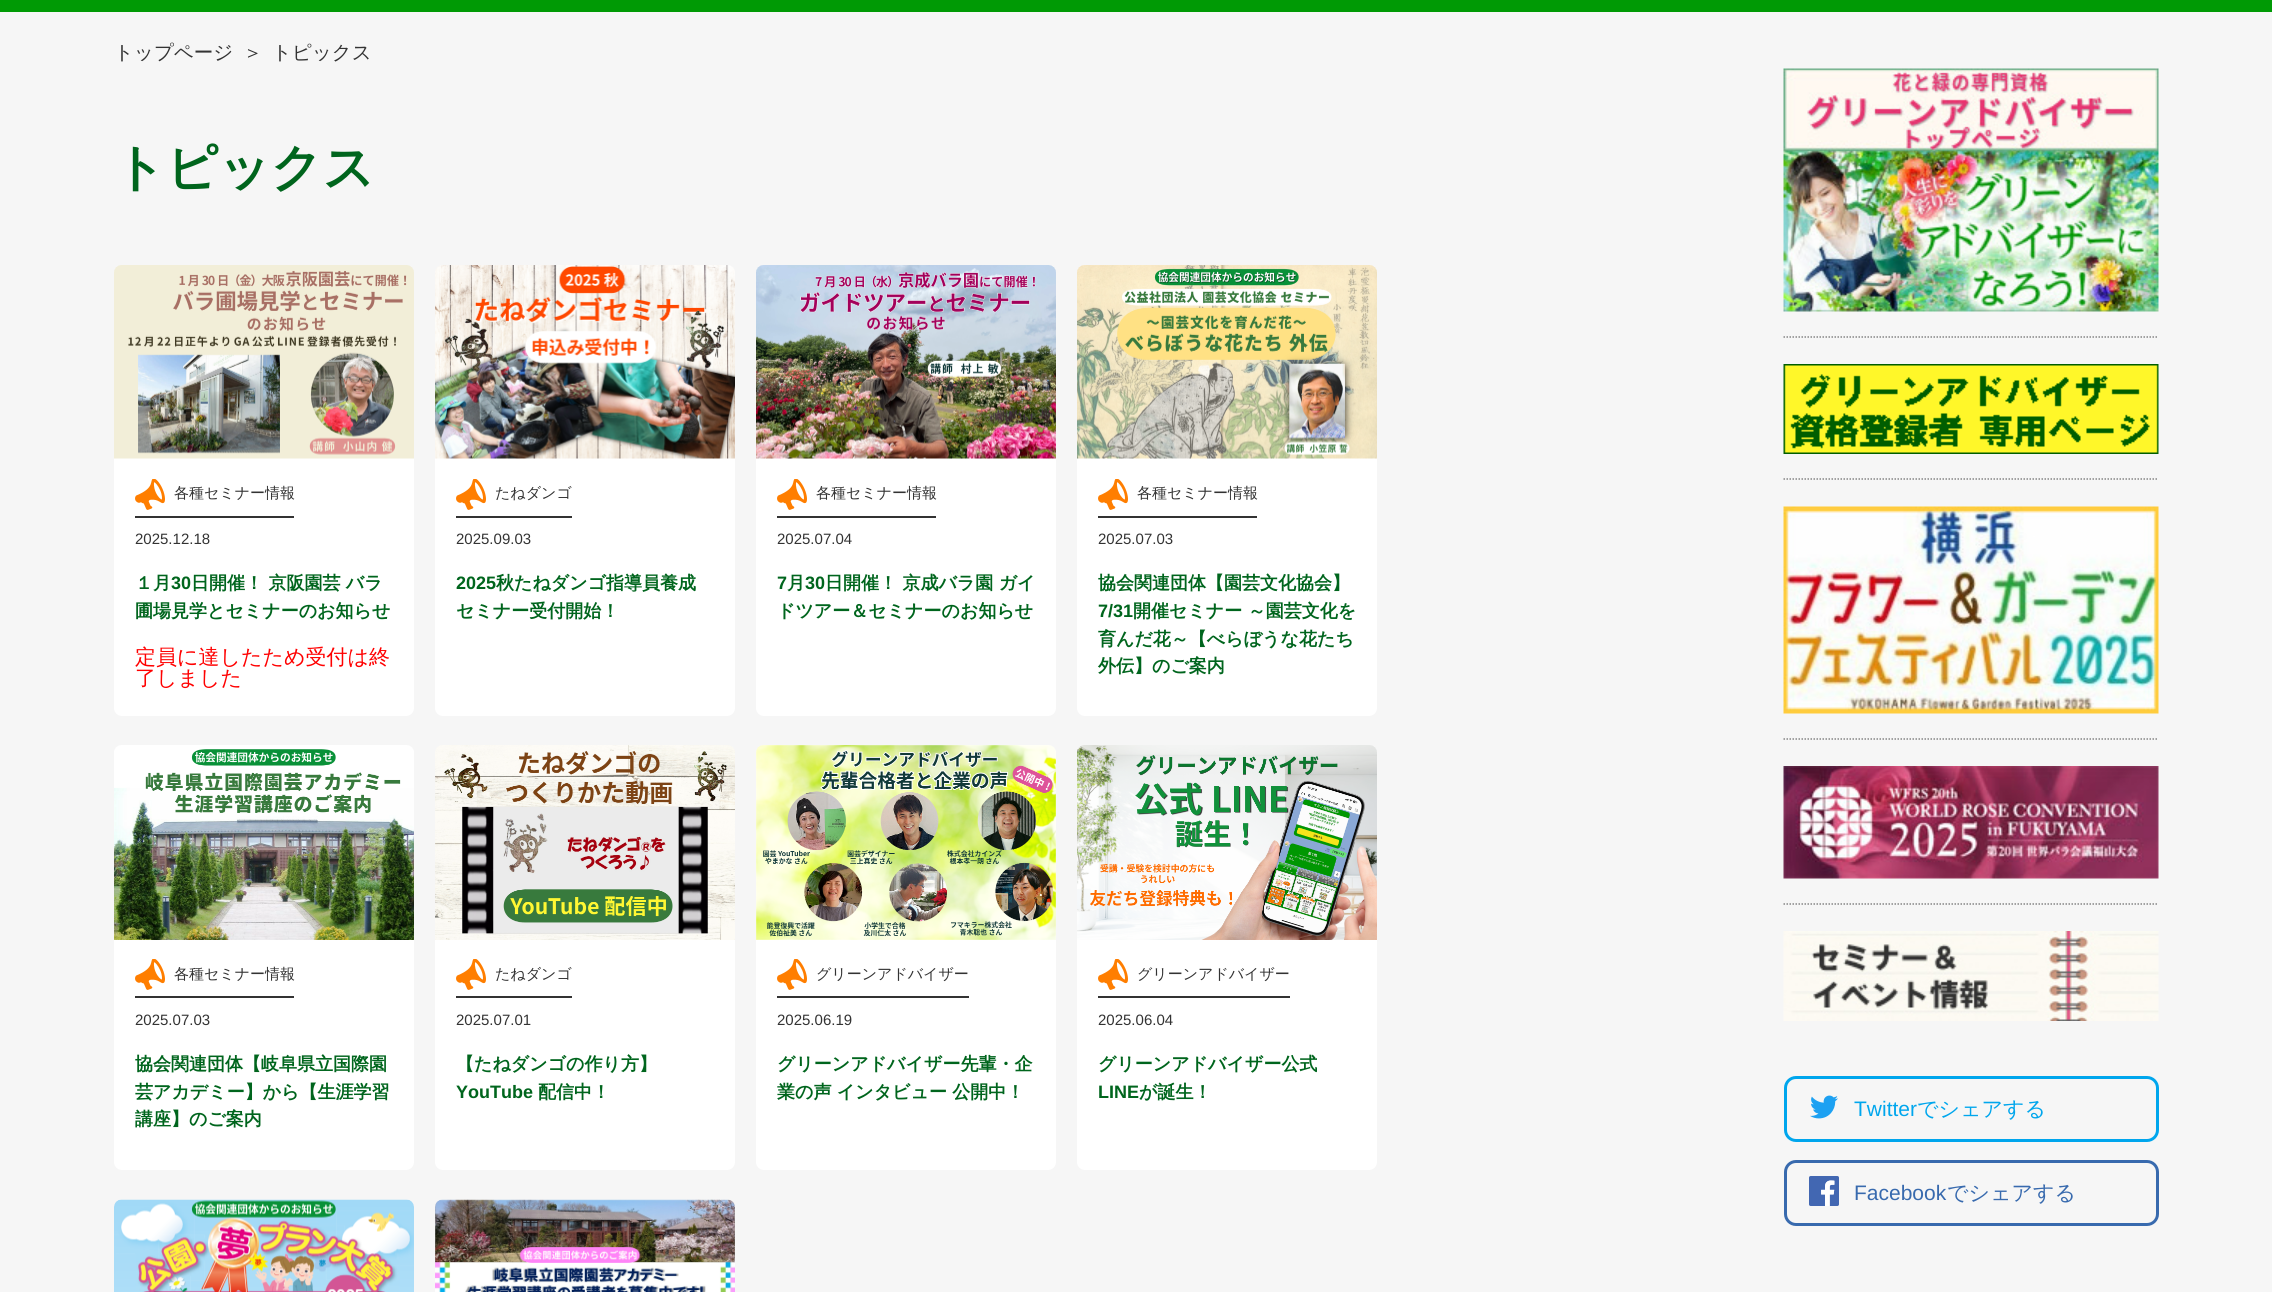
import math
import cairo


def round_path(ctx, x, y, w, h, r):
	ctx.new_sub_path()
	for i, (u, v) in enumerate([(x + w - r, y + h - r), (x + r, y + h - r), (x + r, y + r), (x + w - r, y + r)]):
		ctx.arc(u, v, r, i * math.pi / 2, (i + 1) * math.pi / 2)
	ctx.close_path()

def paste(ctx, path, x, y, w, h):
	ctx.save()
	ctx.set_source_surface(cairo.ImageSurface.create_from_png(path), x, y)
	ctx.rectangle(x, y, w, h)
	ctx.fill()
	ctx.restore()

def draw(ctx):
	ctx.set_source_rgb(0.961, 0.961, 0.961)
	ctx.paint()
	ctx.set_source_rgb(0, 0.604, 0.02)
	ctx.rectangle(0, 0, 2272, 12)
	ctx.fill()
	ctx.select_font_face('WenQuanYi Zen Hei Medium')
	ctx.set_font_size(19.5)
	ctx.set_source_rgb(0.2, 0.2, 0.2)
	for x, y, s in [
		(114, 59, 'トップページ'),
		(243, 59, '＞'),
		(272, 59, 'トピックス'),
	]:
		ctx.move_to(x, y)
		ctx.show_text(s)
	ctx.select_font_face('WenQuanYi Zen Hei', cairo.FONT_SLANT_NORMAL, cairo.FONT_WEIGHT_BOLD)
	ctx.set_font_size(51)
	ctx.set_source_rgb(0, 0.396, 0.114)
	ctx.move_to(114, 185)
	ctx.show_text('トピックス')
	ctx.set_source_rgb(1, 1, 1)
	round_path(ctx, 114, 266, 300, 450, 8)
	ctx.fill()
	paste(ctx, 'media/1.png', 114, 265, 300, 194)
	ctx.set_source_rgb(0.2, 0.2, 0.2)
	ctx.rectangle(135, 516, 159, 2)
	ctx.fill()
	paste(ctx, 'media/2.png', 135, 479, 30, 31)
	ctx.select_font_face('WenQuanYi Zen Hei Medium')
	ctx.set_font_size(15)
	ctx.move_to(174, 498)
	ctx.show_text('各種セミナー情報')
	ctx.select_font_face('Liberation Sans')
	ctx.move_to(135, 544)
	ctx.show_text('2025.12.18')
	ctx.select_font_face('WenQuanYi Zen Hei', cairo.FONT_SLANT_NORMAL, cairo.FONT_WEIGHT_BOLD)
	ctx.set_font_size(18)
	ctx.set_source_rgb(0, 0.396, 0.114)
	ctx.move_to(135, 589)
	ctx.show_text('１月')
	ctx.select_font_face('Liberation Sans', cairo.FONT_SLANT_NORMAL, cairo.FONT_WEIGHT_BOLD)
	ctx.move_to(171, 589)
	ctx.show_text('30')
	ctx.select_font_face('WenQuanYi Zen Hei', cairo.FONT_SLANT_NORMAL, cairo.FONT_WEIGHT_BOLD)
	ctx.move_to(191, 589)
	ctx.show_text('日開催！ 京阪園芸 バラ')
	ctx.move_to(135, 617)
	ctx.show_text('圃場見学とセミナーのお知らせ')
	ctx.select_font_face('WenQuanYi Zen Hei Medium')
	ctx.set_font_size(21)
	ctx.set_source_rgb(1, 0, 0)
	ctx.move_to(135, 664)
	ctx.show_text('定員に達したため受付は終')
	ctx.move_to(135, 685)
	ctx.show_text('了しました')
	ctx.set_source_rgb(1, 1, 1)
	round_path(ctx, 435, 266, 300, 450, 8)
	ctx.fill()
	paste(ctx, 'media/3.png', 435, 265, 300, 194)
	ctx.set_source_rgb(0.2, 0.2, 0.2)
	ctx.rectangle(456, 516, 116, 2)
	ctx.fill()
	paste(ctx, 'media/2.png', 456, 479, 30, 31)
	ctx.set_font_size(15)
	ctx.move_to(495, 498)
	ctx.show_text('たねダンゴ')
	ctx.select_font_face('Liberation Sans')
	ctx.move_to(456, 544)
	ctx.show_text('2025.09.03')
	ctx.select_font_face('Liberation Sans', cairo.FONT_SLANT_NORMAL, cairo.FONT_WEIGHT_BOLD)
	ctx.set_font_size(18)
	ctx.set_source_rgb(0, 0.396, 0.114)
	ctx.move_to(456, 589)
	ctx.show_text('2025')
	ctx.select_font_face('WenQuanYi Zen Hei', cairo.FONT_SLANT_NORMAL, cairo.FONT_WEIGHT_BOLD)
	ctx.move_to(496, 589)
	ctx.show_text('秋たねダンゴ指導員養成')
	ctx.move_to(456, 617)
	ctx.show_text('セミナー受付開始！')
	ctx.set_source_rgb(1, 1, 1)
	round_path(ctx, 756, 266, 300, 450, 8)
	ctx.fill()
	paste(ctx, 'media/4.png', 756, 265, 300, 194)
	ctx.set_source_rgb(0.2, 0.2, 0.2)
	ctx.rectangle(777, 516, 159, 2)
	ctx.fill()
	paste(ctx, 'media/2.png', 777, 479, 30, 31)
	ctx.select_font_face('WenQuanYi Zen Hei Medium')
	ctx.set_font_size(15)
	ctx.move_to(816, 498)
	ctx.show_text('各種セミナー情報')
	ctx.select_font_face('Liberation Sans')
	ctx.move_to(777, 544)
	ctx.show_text('2025.07.04')
	ctx.select_font_face('Liberation Sans', cairo.FONT_SLANT_NORMAL, cairo.FONT_WEIGHT_BOLD)
	ctx.set_font_size(18)
	ctx.set_source_rgb(0, 0.396, 0.114)
	ctx.move_to(777, 589)
	ctx.show_text('7')
	ctx.select_font_face('WenQuanYi Zen Hei', cairo.FONT_SLANT_NORMAL, cairo.FONT_WEIGHT_BOLD)
	ctx.move_to(787, 589)
	ctx.show_text('月')
	ctx.select_font_face('Liberation Sans', cairo.FONT_SLANT_NORMAL, cairo.FONT_WEIGHT_BOLD)
	ctx.move_to(805, 589)
	ctx.show_text('30')
	ctx.select_font_face('WenQuanYi Zen Hei', cairo.FONT_SLANT_NORMAL, cairo.FONT_WEIGHT_BOLD)
	ctx.move_to(825, 589)
	ctx.show_text('日開催！ 京成バラ園 ガイ')
	ctx.move_to(777, 617)
	ctx.show_text('ドツアー＆セミナーのお知らせ')
	ctx.set_source_rgb(1, 1, 1)
	round_path(ctx, 1077, 266, 300, 450, 8)
	ctx.fill()
	paste(ctx, 'media/5.png', 1077, 265, 300, 194)
	ctx.set_source_rgb(0.2, 0.2, 0.2)
	ctx.rectangle(1098, 516, 159, 2)
	ctx.fill()
	paste(ctx, 'media/2.png', 1098, 479, 30, 31)
	ctx.select_font_face('WenQuanYi Zen Hei Medium')
	ctx.set_font_size(15)
	ctx.move_to(1137, 498)
	ctx.show_text('各種セミナー情報')
	ctx.select_font_face('Liberation Sans')
	ctx.move_to(1098, 544)
	ctx.show_text('2025.07.03')
	ctx.select_font_face('WenQuanYi Zen Hei', cairo.FONT_SLANT_NORMAL, cairo.FONT_WEIGHT_BOLD)
	ctx.set_font_size(18)
	ctx.set_source_rgb(0, 0.396, 0.114)
	ctx.move_to(1098, 589)
	ctx.show_text('協会関連団体【園芸文化協会】')
	ctx.select_font_face('Liberation Sans', cairo.FONT_SLANT_NORMAL, cairo.FONT_WEIGHT_BOLD)
	ctx.move_to(1098, 617)
	ctx.show_text('7/31')
	ctx.select_font_face('WenQuanYi Zen Hei', cairo.FONT_SLANT_NORMAL, cairo.FONT_WEIGHT_BOLD)
	for x, y, s in [
		(1133, 617, '開催セミナー ～園芸文化を'),
		(1098, 645, '育んだ花～【べらぼうな花たち'),
		(1098, 672, '外伝】のご案内'),
	]:
		ctx.move_to(x, y)
		ctx.show_text(s)
	ctx.set_source_rgb(1, 1, 1)
	round_path(ctx, 114, 746, 300, 424, 8)
	ctx.fill()
	paste(ctx, 'media/6.png', 114, 745, 300, 195)
	ctx.set_source_rgb(0.2, 0.2, 0.2)
	ctx.rectangle(135, 996, 159, 2)
	ctx.fill()
	paste(ctx, 'media/2.png', 135, 959, 30, 31)
	ctx.select_font_face('WenQuanYi Zen Hei Medium')
	ctx.set_font_size(15)
	ctx.move_to(174, 979)
	ctx.show_text('各種セミナー情報')
	ctx.select_font_face('Liberation Sans')
	ctx.move_to(135, 1025)
	ctx.show_text('2025.07.03')
	ctx.select_font_face('WenQuanYi Zen Hei', cairo.FONT_SLANT_NORMAL, cairo.FONT_WEIGHT_BOLD)
	ctx.set_font_size(18)
	ctx.set_source_rgb(0, 0.396, 0.114)
	for x, y, s in [
		(135, 1070, '協会関連団体【岐阜県立国際園'),
		(135, 1098, '芸アカデミー】から【生涯学習'),
		(135, 1125, '講座】のご案内'),
	]:
		ctx.move_to(x, y)
		ctx.show_text(s)
	ctx.set_source_rgb(1, 1, 1)
	round_path(ctx, 435, 746, 300, 424, 8)
	ctx.fill()
	paste(ctx, 'media/7.png', 435, 745, 300, 195)
	ctx.set_source_rgb(0.2, 0.2, 0.2)
	ctx.rectangle(456, 996, 116, 2)
	ctx.fill()
	paste(ctx, 'media/2.png', 456, 959, 30, 31)
	ctx.select_font_face('WenQuanYi Zen Hei Medium')
	ctx.set_font_size(15)
	ctx.move_to(495, 979)
	ctx.show_text('たねダンゴ')
	ctx.select_font_face('Liberation Sans')
	ctx.move_to(456, 1025)
	ctx.show_text('2025.07.01')
	ctx.select_font_face('WenQuanYi Zen Hei', cairo.FONT_SLANT_NORMAL, cairo.FONT_WEIGHT_BOLD)
	ctx.set_font_size(18)
	ctx.set_source_rgb(0, 0.396, 0.114)
	ctx.move_to(456, 1070)
	ctx.show_text('【たねダンゴの作り方】')
	ctx.select_font_face('Liberation Sans', cairo.FONT_SLANT_NORMAL, cairo.FONT_WEIGHT_BOLD)
	ctx.move_to(456, 1098)
	ctx.show_text('YouTube')
	ctx.select_font_face('WenQuanYi Zen Hei', cairo.FONT_SLANT_NORMAL, cairo.FONT_WEIGHT_BOLD)
	ctx.move_to(538, 1098)
	ctx.show_text('配信中！')
	ctx.set_source_rgb(1, 1, 1)
	round_path(ctx, 756, 746, 300, 424, 8)
	ctx.fill()
	paste(ctx, 'media/8.png', 756, 745, 300, 195)
	ctx.set_source_rgb(0.2, 0.2, 0.2)
	ctx.rectangle(777, 996, 192, 2)
	ctx.fill()
	paste(ctx, 'media/2.png', 777, 959, 30, 31)
	ctx.select_font_face('WenQuanYi Zen Hei Medium')
	ctx.set_font_size(15)
	ctx.move_to(816, 979)
	ctx.show_text('グリーンアドバイザー')
	ctx.select_font_face('Liberation Sans')
	ctx.move_to(777, 1025)
	ctx.show_text('2025.06.19')
	ctx.select_font_face('WenQuanYi Zen Hei', cairo.FONT_SLANT_NORMAL, cairo.FONT_WEIGHT_BOLD)
	ctx.set_font_size(18)
	ctx.set_source_rgb(0, 0.396, 0.114)
	ctx.move_to(777, 1070)
	ctx.show_text('グリーンアドバイザー先輩・企')
	ctx.move_to(777, 1098)
	ctx.show_text('業の声 インタビュー 公開中！')
	ctx.set_source_rgb(1, 1, 1)
	round_path(ctx, 1077, 746, 300, 424, 8)
	ctx.fill()
	paste(ctx, 'media/9.png', 1077, 745, 300, 195)
	ctx.set_source_rgb(0.2, 0.2, 0.2)
	ctx.rectangle(1098, 996, 192, 2)
	ctx.fill()
	paste(ctx, 'media/2.png', 1098, 959, 30, 31)
	ctx.select_font_face('WenQuanYi Zen Hei Medium')
	ctx.set_font_size(15)
	ctx.move_to(1137, 979)
	ctx.show_text('グリーンアドバイザー')
	ctx.select_font_face('Liberation Sans')
	ctx.move_to(1098, 1025)
	ctx.show_text('2025.06.04')
	ctx.select_font_face('WenQuanYi Zen Hei', cairo.FONT_SLANT_NORMAL, cairo.FONT_WEIGHT_BOLD)
	ctx.set_font_size(18)
	ctx.set_source_rgb(0, 0.396, 0.114)
	ctx.move_to(1098, 1070)
	ctx.show_text('グリーンアドバイザー公式')
	ctx.select_font_face('Liberation Sans', cairo.FONT_SLANT_NORMAL, cairo.FONT_WEIGHT_BOLD)
	ctx.move_to(1098, 1098)
	ctx.show_text('LINE')
	ctx.select_font_face('WenQuanYi Zen Hei', cairo.FONT_SLANT_NORMAL, cairo.FONT_WEIGHT_BOLD)
	ctx.move_to(1139, 1098)
	ctx.show_text('が誕生！')
	paste(ctx, 'media/10.png', 114, 1199, 300, 93)
	paste(ctx, 'media/11.png', 435, 1199, 300, 93)
	ctx.new_path()
	ctx.move_to(1783.5, 337)
	ctx.line_to(2158.5, 337)
	ctx.set_source_rgb(0.522, 0.522, 0.522)
	ctx.set_line_width(1.5)
	ctx.set_dash([1.5, 1.5])
	ctx.stroke()
	paste(ctx, 'media/12.png', 1783, 68, 376, 244)
	ctx.new_path()
	ctx.move_to(1783.5, 479)
	ctx.line_to(2158.5, 479)
	ctx.stroke()
	paste(ctx, 'media/13.png', 1783, 364, 376, 90)
	ctx.new_path()
	ctx.move_to(1783.5, 739)
	ctx.line_to(2158.5, 739)
	ctx.stroke()
	paste(ctx, 'media/14.png', 1783, 506, 376, 208)
	ctx.new_path()
	ctx.move_to(1783.5, 904)
	ctx.line_to(2158.5, 904)
	ctx.stroke()
	paste(ctx, 'media/15.png', 1783, 766, 376, 113)
	paste(ctx, 'media/16.png', 1783, 931, 376, 90)
	round_path(ctx, 1785.5, 1077.5, 372, 63, 10.5)
	ctx.set_source_rgb(0, 0.651, 0.929)
	ctx.set_line_width(3)
	ctx.set_dash([])
	ctx.stroke()
	paste(ctx, 'media/17.png', 1810, 1095, 28, 24)
	ctx.select_font_face('Liberation Sans')
	ctx.set_font_size(21)
	ctx.move_to(1854, 1116)
	ctx.show_text('Twitter')
	ctx.select_font_face('WenQuanYi Zen Hei Medium')
	ctx.move_to(1917, 1116)
	ctx.show_text('でシェアする')
	round_path(ctx, 1785.5, 1161.5, 372, 63, 10.5)
	ctx.set_source_rgb(0.22, 0.416, 0.682)
	ctx.stroke()
	paste(ctx, 'media/18.png', 1809, 1176, 30, 30)
	ctx.select_font_face('Liberation Sans')
	ctx.move_to(1854, 1200)
	ctx.show_text('Facebook')
	ctx.select_font_face('WenQuanYi Zen Hei Medium')
	ctx.move_to(1947, 1200)
	ctx.show_text('でシェアする')


surface = cairo.ImageSurface(cairo.FORMAT_RGB24, 2272, 1292)
ctx = cairo.Context(surface)
options = cairo.FontOptions()
options.set_hint_metrics(cairo.HINT_METRICS_OFF)
options.set_hint_style(cairo.HINT_STYLE_NONE)
ctx.set_font_options(options)
ctx.set_miter_limit(4)
draw(ctx)
surface.write_to_png('image.png')
